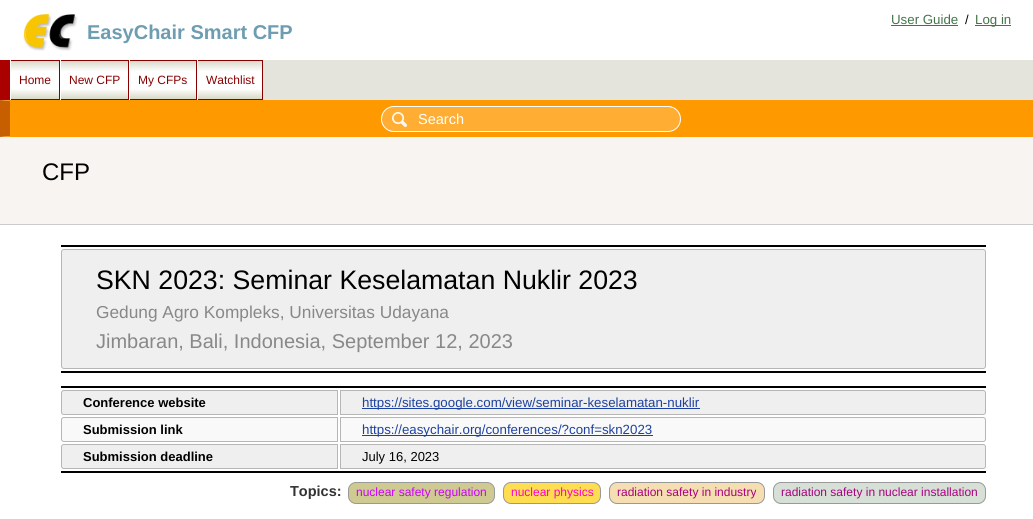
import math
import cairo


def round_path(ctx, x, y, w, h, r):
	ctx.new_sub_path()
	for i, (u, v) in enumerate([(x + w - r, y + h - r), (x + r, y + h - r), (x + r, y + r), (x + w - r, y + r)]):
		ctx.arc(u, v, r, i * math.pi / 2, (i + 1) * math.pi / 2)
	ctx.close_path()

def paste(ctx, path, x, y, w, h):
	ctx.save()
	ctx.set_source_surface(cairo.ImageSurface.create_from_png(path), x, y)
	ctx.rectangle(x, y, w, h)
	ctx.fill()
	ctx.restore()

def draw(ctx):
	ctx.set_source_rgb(1, 1, 1)
	ctx.paint()
	paste(ctx, 'media/1.png', 23, 14, 55, 37)
	ctx.select_font_face('Liberation Sans')
	ctx.set_font_size(13.3)
	ctx.set_source_rgb(0.267, 0.459, 0.282)
	ctx.move_to(891, 24)
	ctx.show_text('User Guide')
	ctx.rectangle(891, 25, 67, 1)
	ctx.fill()
	ctx.set_font_size(13)
	ctx.set_source_rgb(0, 0, 0)
	ctx.move_to(965, 24)
	ctx.show_text('/')
	ctx.set_source_rgb(0.267, 0.459, 0.282)
	ctx.rectangle(975, 25, 36, 1)
	ctx.fill()
	ctx.set_font_size(13.3)
	ctx.move_to(975, 24)
	ctx.show_text('Log in')
	ctx.select_font_face('Liberation Sans', cairo.FONT_SLANT_NORMAL, cairo.FONT_WEIGHT_BOLD)
	ctx.set_font_size(20)
	ctx.set_source_rgb(0.431, 0.616, 0.694)
	ctx.move_to(87, 39)
	ctx.show_text('EasyChair Smart CFP')
	ctx.set_source_rgb(0.894, 0.894, 0.863)
	ctx.rectangle(263, 60, 770, 40)
	ctx.fill()
	ctx.set_source_rgb(0.667, 0, 0)
	ctx.rectangle(0, 60, 10, 40)
	ctx.fill()
	paste(ctx, 'media/2.png', 11, 61, 48, 38)
	ctx.set_source_rgb(0.533, 0, 0)
	ctx.rectangle(10, 60, 253, 1)
	ctx.rectangle(59, 60, 1, 40)
	ctx.rectangle(10, 99, 50, 1)
	ctx.fill()
	ctx.set_source_rgb(1, 1, 1)
	ctx.rectangle(10, 60, 1, 40)
	ctx.fill()
	ctx.select_font_face('Liberation Sans')
	ctx.set_font_size(12)
	ctx.set_source_rgb(0.533, 0, 0)
	ctx.move_to(19, 84)
	ctx.show_text('Home')
	paste(ctx, 'media/3.png', 61, 61, 67, 38)
	ctx.rectangle(128, 60, 1, 40)
	ctx.rectangle(60, 99, 69, 1)
	ctx.fill()
	ctx.set_source_rgb(1, 1, 1)
	ctx.rectangle(60, 60, 1, 40)
	ctx.fill()
	ctx.set_source_rgb(0.533, 0, 0)
	ctx.move_to(69, 84)
	ctx.show_text('New CFP')
	paste(ctx, 'media/4.png', 130, 61, 66, 38)
	ctx.rectangle(196, 60, 1, 40)
	ctx.rectangle(129, 99, 68, 1)
	ctx.fill()
	ctx.set_source_rgb(1, 1, 1)
	ctx.rectangle(129, 60, 1, 40)
	ctx.fill()
	ctx.set_source_rgb(0.533, 0, 0)
	ctx.move_to(138, 84)
	ctx.show_text('My CFPs')
	paste(ctx, 'media/5.png', 198, 61, 64, 38)
	ctx.rectangle(262, 60, 1, 40)
	ctx.rectangle(197, 99, 66, 1)
	ctx.fill()
	ctx.set_source_rgb(1, 1, 1)
	ctx.rectangle(197, 60, 1, 40)
	ctx.fill()
	ctx.set_source_rgb(0.533, 0, 0)
	ctx.move_to(206, 84)
	ctx.show_text('Watchlist')
	ctx.set_source_rgb(1, 0.6, 0)
	ctx.rectangle(10, 101, 1022, 35)
	ctx.fill()
	ctx.new_path()
	ctx.move_to(0, 100)
	ctx.line_to(1033, 100)
	ctx.line_to(1032, 101)
	ctx.line_to(10, 101)
	ctx.close_path()
	ctx.fill()
	ctx.rectangle(1032, 100, 1, 37)
	ctx.fill()
	ctx.new_path()
	ctx.move_to(1033, 137)
	ctx.line_to(0, 137)
	ctx.line_to(10, 136)
	ctx.line_to(1032, 136)
	ctx.close_path()
	ctx.fill()
	ctx.set_source_rgb(0.78, 0.369, 0)
	ctx.new_path()
	ctx.move_to(0, 137)
	ctx.line_to(0, 100)
	ctx.line_to(10, 101)
	ctx.line_to(10, 136)
	ctx.close_path()
	ctx.fill()
	ctx.set_source_rgb(1, 0.678, 0.2)
	round_path(ctx, 381, 106, 300, 26, 13)
	ctx.fill()
	paste(ctx, 'media/6.png', 392, 112, 15, 15)
	round_path(ctx, 381.5, 106.5, 299, 25, 12.5)
	ctx.set_source_rgb(1, 1, 1)
	ctx.set_line_width(1)
	ctx.stroke()
	ctx.set_font_size(14.5)
	ctx.move_to(418, 124)
	ctx.show_text('Search')
	ctx.set_source_rgb(0.965, 0.957, 0.949)
	ctx.rectangle(0, 137, 1033, 87)
	ctx.fill()
	ctx.set_source_rgb(0.8, 0.8, 0.8)
	ctx.rectangle(0, 224, 1033, 1)
	ctx.fill()
	ctx.set_font_size(24)
	ctx.set_source_rgb(0, 0, 0)
	ctx.move_to(42, 180)
	ctx.show_text('CFP')
	ctx.rectangle(61, 245, 925, 2)
	ctx.fill()
	ctx.rectangle(61, 371, 925, 2)
	ctx.fill()
	ctx.set_source_rgb(0.937, 0.937, 0.937)
	round_path(ctx, 61.5, 249.5, 924, 119, 2.5)
	ctx.fill_preserve()
	ctx.set_source_rgb(0.714, 0.714, 0.714)
	ctx.stroke()
	ctx.set_font_size(26.7)
	ctx.set_source_rgb(0, 0, 0)
	ctx.move_to(96, 289)
	ctx.show_text('SKN 2023: Seminar Keselamatan Nuklir 2023')
	ctx.set_font_size(17.3)
	ctx.set_source_rgb(0.533, 0.533, 0.533)
	ctx.move_to(96, 318)
	ctx.show_text('Gedung Agro Kompleks, Universitas Udayana')
	ctx.set_font_size(20)
	ctx.move_to(96, 348)
	ctx.show_text('Jimbaran, Bali, Indonesia, September 12, 2023')
	ctx.set_source_rgb(0, 0, 0)
	ctx.rectangle(61, 386, 925, 2)
	ctx.fill()
	ctx.rectangle(61, 471, 925, 2)
	ctx.fill()
	ctx.set_source_rgb(0.937, 0.937, 0.937)
	ctx.new_path()
	ctx.move_to(64, 390.5)
	ctx.line_to(337.5, 390.5)
	ctx.line_to(337.5, 414.5)
	ctx.line_to(64, 414.5)
	ctx.curve_to(62.5, 414.5, 61.5, 413.5, 61.5, 412)
	ctx.line_to(61.5, 393)
	ctx.curve_to(61.5, 391.5, 62.5, 390.5, 64, 390.5)
	ctx.close_path()
	ctx.fill_preserve()
	ctx.set_source_rgb(0.714, 0.714, 0.714)
	ctx.stroke()
	ctx.select_font_face('Liberation Sans', cairo.FONT_SLANT_NORMAL, cairo.FONT_WEIGHT_BOLD)
	ctx.set_font_size(13)
	ctx.set_source_rgb(0, 0, 0)
	ctx.move_to(83, 407)
	ctx.show_text('Conference website')
	ctx.set_source_rgb(0.937, 0.937, 0.937)
	ctx.new_path()
	ctx.move_to(340.5, 390.5)
	ctx.line_to(983, 390.5)
	ctx.curve_to(984.5, 390.5, 985.5, 391.5, 985.5, 393)
	ctx.line_to(985.5, 412)
	ctx.curve_to(985.5, 413.5, 984.5, 414.5, 983, 414.5)
	ctx.line_to(340.5, 414.5)
	ctx.close_path()
	ctx.fill_preserve()
	ctx.set_source_rgb(0.714, 0.714, 0.714)
	ctx.stroke()
	ctx.set_source_rgb(0.114, 0.255, 0.624)
	ctx.rectangle(362, 408, 338, 1)
	ctx.fill()
	ctx.select_font_face('Liberation Sans')
	ctx.set_font_size(13.3)
	ctx.move_to(362, 407)
	ctx.show_text('https://sites.google.com/view/seminar-keselamatan-nuklir')
	ctx.set_source_rgb(0.976, 0.976, 0.976)
	ctx.new_path()
	ctx.move_to(64, 417.5)
	ctx.line_to(337.5, 417.5)
	ctx.line_to(337.5, 441.5)
	ctx.line_to(64, 441.5)
	ctx.curve_to(62.5, 441.5, 61.5, 440.5, 61.5, 439)
	ctx.line_to(61.5, 420)
	ctx.curve_to(61.5, 418.5, 62.5, 417.5, 64, 417.5)
	ctx.close_path()
	ctx.fill_preserve()
	ctx.set_source_rgb(0.714, 0.714, 0.714)
	ctx.stroke()
	ctx.select_font_face('Liberation Sans', cairo.FONT_SLANT_NORMAL, cairo.FONT_WEIGHT_BOLD)
	ctx.set_font_size(13)
	ctx.set_source_rgb(0, 0, 0)
	ctx.move_to(83, 434)
	ctx.show_text('Submission link')
	ctx.set_source_rgb(0.976, 0.976, 0.976)
	ctx.new_path()
	ctx.move_to(340.5, 417.5)
	ctx.line_to(983, 417.5)
	ctx.curve_to(984.5, 417.5, 985.5, 418.5, 985.5, 420)
	ctx.line_to(985.5, 439)
	ctx.curve_to(985.5, 440.5, 984.5, 441.5, 983, 441.5)
	ctx.line_to(340.5, 441.5)
	ctx.close_path()
	ctx.fill_preserve()
	ctx.set_source_rgb(0.714, 0.714, 0.714)
	ctx.stroke()
	ctx.set_source_rgb(0.114, 0.255, 0.624)
	ctx.rectangle(362, 435, 291, 1)
	ctx.fill()
	ctx.select_font_face('Liberation Sans')
	ctx.set_font_size(13.3)
	ctx.move_to(362, 434)
	ctx.show_text('https://easychair.org/conferences/?conf=skn2023')
	ctx.set_source_rgb(0.937, 0.937, 0.937)
	ctx.new_path()
	ctx.move_to(64, 444.5)
	ctx.line_to(337.5, 444.5)
	ctx.line_to(337.5, 468.5)
	ctx.line_to(64, 468.5)
	ctx.curve_to(62.5, 468.5, 61.5, 467.5, 61.5, 466)
	ctx.line_to(61.5, 447)
	ctx.curve_to(61.5, 445.5, 62.5, 444.5, 64, 444.5)
	ctx.close_path()
	ctx.fill_preserve()
	ctx.set_source_rgb(0.714, 0.714, 0.714)
	ctx.stroke()
	ctx.select_font_face('Liberation Sans', cairo.FONT_SLANT_NORMAL, cairo.FONT_WEIGHT_BOLD)
	ctx.set_font_size(13)
	ctx.set_source_rgb(0, 0, 0)
	ctx.move_to(83, 461)
	ctx.show_text('Submission deadline')
	ctx.set_source_rgb(0.937, 0.937, 0.937)
	ctx.new_path()
	ctx.move_to(340.5, 444.5)
	ctx.line_to(983, 444.5)
	ctx.curve_to(984.5, 444.5, 985.5, 445.5, 985.5, 447)
	ctx.line_to(985.5, 466)
	ctx.curve_to(985.5, 467.5, 984.5, 468.5, 983, 468.5)
	ctx.line_to(340.5, 468.5)
	ctx.close_path()
	ctx.fill_preserve()
	ctx.set_source_rgb(0.714, 0.714, 0.714)
	ctx.stroke()
	ctx.select_font_face('Liberation Sans')
	ctx.set_source_rgb(0, 0, 0)
	ctx.move_to(362, 461)
	ctx.show_text('July 16, 2023')
	ctx.select_font_face('Liberation Sans', cairo.FONT_SLANT_NORMAL, cairo.FONT_WEIGHT_BOLD)
	ctx.set_font_size(14.5)
	ctx.set_source_rgb(0.2, 0.2, 0.2)
	ctx.move_to(290, 496)
	ctx.show_text('Topics:')
	ctx.set_source_rgb(0.812, 0.792, 0.573)
	round_path(ctx, 348.5, 482.5, 146, 21, 7.5)
	ctx.fill_preserve()
	ctx.set_source_rgb(0.6, 0.6, 0.6)
	ctx.stroke()
	ctx.select_font_face('Liberation Sans')
	ctx.set_font_size(12)
	ctx.set_source_rgb(0.8, 0, 1)
	ctx.move_to(356, 496)
	ctx.show_text('nuclear safety regulation')
	ctx.set_source_rgb(1, 0.867, 0.318)
	round_path(ctx, 503.5, 482.5, 97, 21, 7.5)
	ctx.fill_preserve()
	ctx.set_source_rgb(0.6, 0.6, 0.6)
	ctx.stroke()
	ctx.set_source_rgb(1, 0, 0.8)
	ctx.move_to(511, 496)
	ctx.show_text('nuclear physics')
	ctx.set_source_rgb(0.961, 0.871, 0.702)
	round_path(ctx, 609.5, 482.5, 155, 21, 7.5)
	ctx.fill_preserve()
	ctx.set_source_rgb(0.6, 0.6, 0.6)
	ctx.stroke()
	ctx.set_source_rgb(0.667, 0, 0.502)
	ctx.move_to(617, 496)
	ctx.show_text('radiation safety in industry')
	ctx.set_source_rgb(0.839, 0.878, 0.839)
	round_path(ctx, 773.5, 482.5, 212, 21, 7.5)
	ctx.fill_preserve()
	ctx.set_source_rgb(0.6, 0.6, 0.6)
	ctx.stroke()
	ctx.set_source_rgb(0.667, 0, 0.502)
	ctx.move_to(781, 496)
	ctx.show_text('radiation safety in nuclear installation')


surface = cairo.ImageSurface(cairo.FORMAT_RGB24, 1033, 519)
ctx = cairo.Context(surface)
options = cairo.FontOptions()
options.set_hint_metrics(cairo.HINT_METRICS_OFF)
options.set_hint_style(cairo.HINT_STYLE_NONE)
ctx.set_font_options(options)
ctx.set_miter_limit(4)
draw(ctx)
surface.write_to_png('image.png')
